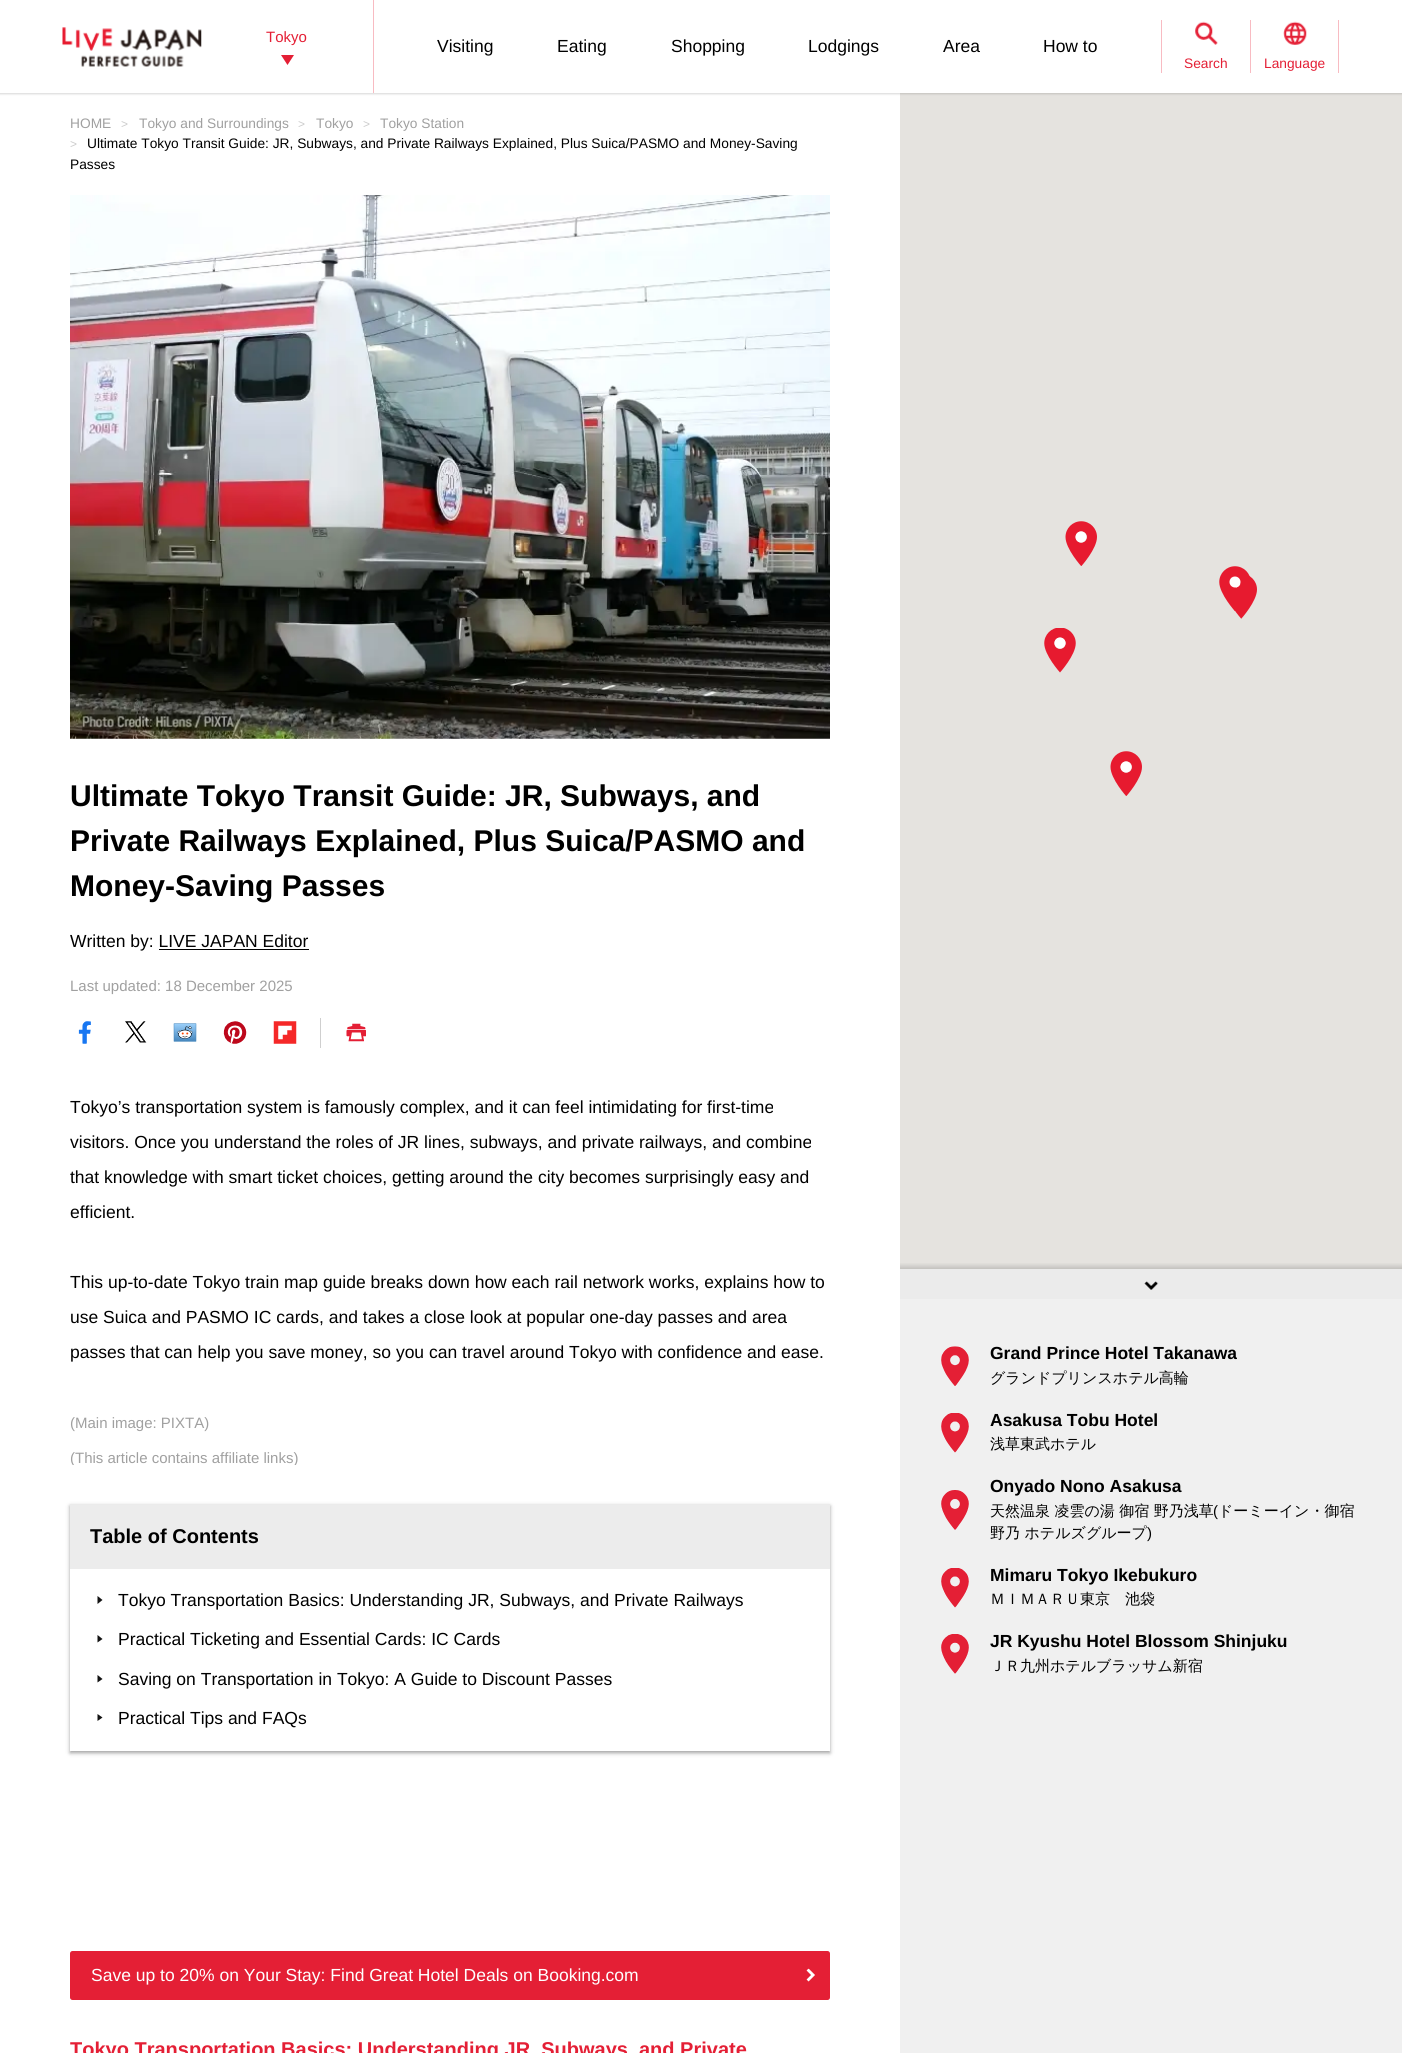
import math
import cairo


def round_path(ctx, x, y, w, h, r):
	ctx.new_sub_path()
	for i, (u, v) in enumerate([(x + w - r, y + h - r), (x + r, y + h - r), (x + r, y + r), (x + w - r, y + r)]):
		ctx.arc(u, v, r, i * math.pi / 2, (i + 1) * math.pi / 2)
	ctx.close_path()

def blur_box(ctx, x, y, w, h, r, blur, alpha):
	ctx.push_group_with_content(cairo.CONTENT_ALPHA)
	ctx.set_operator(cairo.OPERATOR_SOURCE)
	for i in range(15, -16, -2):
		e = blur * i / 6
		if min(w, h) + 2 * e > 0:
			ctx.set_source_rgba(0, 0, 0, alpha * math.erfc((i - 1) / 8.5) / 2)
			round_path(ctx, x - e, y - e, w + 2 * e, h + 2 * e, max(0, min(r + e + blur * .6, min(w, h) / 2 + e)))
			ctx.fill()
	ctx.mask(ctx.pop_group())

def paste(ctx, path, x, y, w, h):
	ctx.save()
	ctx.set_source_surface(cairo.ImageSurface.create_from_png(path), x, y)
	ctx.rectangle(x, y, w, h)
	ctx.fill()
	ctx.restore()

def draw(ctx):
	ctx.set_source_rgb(1, 1, 1)
	ctx.paint()
	ctx.set_source_rgb(0.898, 0.89, 0.875)
	ctx.rectangle(900, 93, 502, 1176)
	ctx.fill()
	ctx.set_source_rgb(0.196, 0.196, 0.196)
	blur_box(ctx, -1, -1, 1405, 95, 0, 1, 0.2)
	ctx.set_source_rgb(1, 1, 1)
	ctx.rectangle(0, 0, 1402, 93)
	ctx.fill()
	paste(ctx, 'media/1.png', 62, 27, 140, 40)
	ctx.select_font_face('Liberation Sans')
	ctx.set_font_size(15)
	ctx.set_source_rgb(0.894, 0.122, 0.208)
	ctx.move_to(266, 42)
	ctx.show_text('Tokyo')
	ctx.new_path()
	ctx.move_to(281, 55)
	ctx.line_to(294, 55)
	ctx.line_to(287.5, 65)
	ctx.close_path()
	ctx.fill()
	ctx.set_source_rgb(0.969, 0.733, 0.761)
	ctx.rectangle(373, 0, 1, 93)
	ctx.fill()
	ctx.set_font_size(17.5)
	ctx.set_source_rgb(0, 0, 0)
	for x, y, s in [
		(437, 52, 'Visiting'),
		(557, 52, 'Eating'),
		(671, 52, 'Shopping'),
		(808, 52, 'Lodgings'),
		(943, 52, 'Area'),
		(1043, 52, 'How to'),
	]:
		ctx.move_to(x, y)
		ctx.show_text(s)
	ctx.set_source_rgb(0.969, 0.733, 0.761)
	ctx.rectangle(1161, 20, 1, 53)
	ctx.fill()
	paste(ctx, 'media/2.png', 1195, 21, 23, 24)
	ctx.set_font_size(13.75)
	ctx.set_source_rgb(0.894, 0.122, 0.208)
	ctx.move_to(1184, 68)
	ctx.show_text('Search')
	ctx.set_source_rgb(0.969, 0.733, 0.761)
	ctx.rectangle(1338, 20, 1, 53)
	ctx.fill()
	ctx.rectangle(1250, 20, 1, 53)
	ctx.fill()
	paste(ctx, 'media/3.png', 1283, 21, 24, 24)
	ctx.set_source_rgb(0.894, 0.122, 0.208)
	ctx.move_to(1264, 68)
	ctx.show_text('Language')
	ctx.set_source_rgb(0.627, 0.627, 0.627)
	ctx.move_to(70, 128)
	ctx.show_text('HOME')
	ctx.set_font_size(12)
	ctx.set_source_rgb(0.8, 0.8, 0.8)
	ctx.move_to(121, 128)
	ctx.show_text('>')
	ctx.set_font_size(13.75)
	ctx.set_source_rgb(0.627, 0.627, 0.627)
	ctx.move_to(139, 128)
	ctx.show_text('Tokyo and Surroundings')
	ctx.set_font_size(12)
	ctx.set_source_rgb(0.8, 0.8, 0.8)
	ctx.move_to(298, 128)
	ctx.show_text('>')
	ctx.set_font_size(13.75)
	ctx.set_source_rgb(0.627, 0.627, 0.627)
	ctx.move_to(316, 128)
	ctx.show_text('Tokyo')
	ctx.set_font_size(12)
	ctx.set_source_rgb(0.8, 0.8, 0.8)
	ctx.move_to(363, 128)
	ctx.show_text('>')
	ctx.set_font_size(13.75)
	ctx.set_source_rgb(0.627, 0.627, 0.627)
	ctx.move_to(380, 128)
	ctx.show_text('Tokyo Station')
	ctx.set_font_size(12)
	ctx.set_source_rgb(0.8, 0.8, 0.8)
	ctx.move_to(70, 148)
	ctx.show_text('>')
	ctx.set_font_size(13.75)
	ctx.set_source_rgb(0, 0, 0)
	ctx.move_to(87, 148)
	ctx.show_text('Ultimate Tokyo Transit Guide: JR, Subways, and Private Railways Explained, Plus Suica/PASMO and Money-Saving')
	ctx.move_to(70, 169)
	ctx.show_text('Passes')
	paste(ctx, 'media/4.png', 70, 195, 760, 544)
	ctx.select_font_face('Liberation Sans', cairo.FONT_SLANT_NORMAL, cairo.FONT_WEIGHT_BOLD)
	ctx.set_font_size(30)
	for x, y, s in [
		(70, 806, 'Ultimate Tokyo Transit Guide: JR, Subways, and'),
		(70, 851, 'Private Railways Explained, Plus Suica/PASMO and'),
		(70, 896, 'Money-Saving Passes'),
	]:
		ctx.move_to(x, y)
		ctx.show_text(s)
	ctx.select_font_face('Liberation Sans')
	ctx.set_font_size(17.5)
	ctx.move_to(70, 947)
	ctx.show_text('Written by: LIVE JAPAN Editor')
	ctx.rectangle(159, 949, 150, 1)
	ctx.fill()
	ctx.set_font_size(15)
	ctx.set_source_rgb(0.627, 0.627, 0.627)
	ctx.move_to(70, 991)
	ctx.show_text('Last updated: 18 December 2025')
	ctx.set_source_rgb(0.812, 0.812, 0.812)
	ctx.rectangle(320, 1018, 1, 30)
	ctx.fill()
	paste(ctx, 'media/5.png', 78, 1021, 13, 23)
	paste(ctx, 'media/6.png', 125, 1021, 22, 22)
	paste(ctx, 'media/7.png', 173, 1023, 24, 19)
	paste(ctx, 'media/8.png', 223, 1021, 24, 23)
	paste(ctx, 'media/9.png', 273, 1021, 24, 23)
	paste(ctx, 'media/10.png', 346, 1023, 20, 19)
	ctx.set_font_size(17.5)
	ctx.set_source_rgb(0, 0, 0)
	for x, y, s in [
		(70, 1113, 'Tokyo’s transportation system is famously complex, and it can feel intimidating for first-time'),
		(70, 1148, 'visitors. Once you understand the roles of JR lines, subways, and private railways, and combine'),
		(70, 1183, 'that knowledge with smart ticket choices, getting around the city becomes surprisingly easy and'),
		(70, 1218, 'efficient.'),
		(70, 1288, 'This up-to-date Tokyo train map guide breaks down how each rail network works, explains how to'),
		(70, 1323, 'use Suica and PASMO IC cards, and takes a close look at popular one-day passes and area'),
		(70, 1358, 'passes that can help you save money, so you can travel around Tokyo with confidence and ease.'),
	]:
		ctx.move_to(x, y)
		ctx.show_text(s)
	ctx.set_font_size(15)
	ctx.set_source_rgb(0.627, 0.627, 0.627)
	ctx.move_to(70, 1428)
	ctx.show_text('(Main image: PIXTA)')
	ctx.move_to(70, 1463)
	ctx.show_text('(This article contains affiliate links)')
	ctx.set_source_rgb(1, 1, 1)
	ctx.rectangle(72, 1465, 224, 2)
	ctx.fill()
	ctx.save()
	ctx.set_fill_rule(cairo.FILL_RULE_EVEN_ODD)
	ctx.new_path()
	ctx.move_to(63, 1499)
	ctx.line_to(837, 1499)
	ctx.line_to(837, 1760)
	ctx.line_to(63, 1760)
	ctx.close_path()
	ctx.move_to(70, 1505)
	ctx.line_to(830, 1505)
	ctx.line_to(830, 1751)
	ctx.line_to(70, 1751)
	ctx.close_path()
	ctx.clip()
	ctx.set_source_rgb(0.071, 0.071, 0.071)
	blur_box(ctx, 70, 1506, 760, 247, 0, 2, 0.4)
	ctx.restore()
	ctx.set_source_rgb(0.925, 0.925, 0.925)
	ctx.rectangle(70, 1505, 760, 64)
	ctx.fill()
	ctx.select_font_face('Liberation Sans', cairo.FONT_SLANT_NORMAL, cairo.FONT_WEIGHT_BOLD)
	ctx.set_font_size(20)
	ctx.set_source_rgb(0, 0, 0)
	ctx.move_to(90, 1543)
	ctx.show_text('Table of Contents')
	ctx.set_source_rgb(0.075, 0.075, 0.075)
	ctx.new_path()
	ctx.move_to(97.5, 1604)
	ctx.line_to(97.5, 1596)
	ctx.line_to(102.5, 1600)
	ctx.close_path()
	ctx.fill()
	ctx.select_font_face('Liberation Sans')
	ctx.set_font_size(17.5)
	ctx.set_source_rgb(0, 0, 0)
	ctx.move_to(118, 1606)
	ctx.show_text('Tokyo Transportation Basics: Understanding JR, Subways, and Private Railways')
	ctx.set_source_rgb(0.075, 0.075, 0.075)
	ctx.new_path()
	ctx.move_to(97.5, 1642.5)
	ctx.line_to(97.5, 1635)
	ctx.line_to(102.5, 1639)
	ctx.close_path()
	ctx.fill()
	ctx.set_source_rgb(0, 0, 0)
	ctx.move_to(118, 1645)
	ctx.show_text('Practical Ticketing and Essential Cards: IC Cards')
	ctx.set_source_rgb(0.075, 0.075, 0.075)
	ctx.new_path()
	ctx.move_to(97.5, 1682.5)
	ctx.line_to(97.5, 1675)
	ctx.line_to(102.5, 1679)
	ctx.close_path()
	ctx.fill()
	ctx.set_source_rgb(0, 0, 0)
	ctx.move_to(118, 1685)
	ctx.show_text('Saving on Transportation in Tokyo: A Guide to Discount Passes')
	ctx.set_source_rgb(0.075, 0.075, 0.075)
	ctx.new_path()
	ctx.move_to(97.5, 1721)
	ctx.line_to(97.5, 1714)
	ctx.line_to(102.5, 1717.5)
	ctx.close_path()
	ctx.fill()
	ctx.set_source_rgb(0, 0, 0)
	ctx.move_to(118, 1724)
	ctx.show_text('Practical Tips and FAQs')
	ctx.set_source_rgb(0.894, 0.122, 0.208)
	round_path(ctx, 70, 1951, 760, 49, 2.5)
	ctx.fill()
	ctx.set_source_rgb(1, 1, 1)
	ctx.move_to(91, 1981)
	ctx.show_text('Save up to 20% on Your Stay: Find Great Hotel Deals on Booking.com')
	paste(ctx, 'media/11.png', 806, 1968, 9, 14)
	ctx.select_font_face('Liberation Sans', cairo.FONT_SLANT_NORMAL, cairo.FONT_WEIGHT_BOLD)
	ctx.set_font_size(20)
	ctx.set_source_rgb(0.894, 0.122, 0.208)
	ctx.move_to(70, 2056)
	ctx.show_text('Tokyo Transportation Basics: Understanding JR, Subways, and Private')
	ctx.set_source_rgb(0.941, 0.941, 0.941)
	ctx.rectangle(900, 1299, 502, 754)
	ctx.fill()
	paste(ctx, 'media/12.png', 1065, 521, 32, 45)
	paste(ctx, 'media/14.png', 1229, 575, 28, 44)
	paste(ctx, 'media/13.png', 1219, 566, 31, 45)
	paste(ctx, 'media/15.png', 1044, 628, 32, 45)
	paste(ctx, 'media/12.png', 1110, 751, 32, 45)
	ctx.save()
	ctx.rectangle(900, 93, 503, 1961)
	ctx.clip()
	ctx.rectangle(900, 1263, 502, 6)
	ctx.clip()
	ctx.set_source_rgb(0.196, 0.196, 0.196)
	blur_box(ctx, 898, 1266, 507, 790, 0, 2.5, 0.2)
	ctx.restore()
	ctx.set_source_rgb(0.918, 0.918, 0.918)
	ctx.rectangle(900, 1269, 502, 30)
	ctx.fill()
	paste(ctx, 'media/16.png', 1144, 1281, 15, 9)
	paste(ctx, 'media/17.png', 941, 1346, 28, 40)
	ctx.set_font_size(17.5)
	ctx.set_source_rgb(0, 0, 0)
	ctx.move_to(990, 1359)
	ctx.show_text('Grand Prince Hotel Takanawa')
	ctx.select_font_face('WenQuanYi Zen Hei Medium')
	ctx.set_font_size(15)
	ctx.move_to(990, 1383)
	ctx.show_text('グランドプリンスホテル高輪')
	paste(ctx, 'media/18.png', 941, 1413, 28, 40)
	ctx.select_font_face('Liberation Sans', cairo.FONT_SLANT_NORMAL, cairo.FONT_WEIGHT_BOLD)
	ctx.set_font_size(17.5)
	ctx.move_to(990, 1426)
	ctx.show_text('Asakusa Tobu Hotel')
	ctx.select_font_face('WenQuanYi Zen Hei Medium')
	ctx.set_font_size(15)
	ctx.move_to(990, 1449)
	ctx.show_text('浅草東武ホテル')
	paste(ctx, 'media/19.png', 941, 1490, 28, 40)
	ctx.select_font_face('Liberation Sans', cairo.FONT_SLANT_NORMAL, cairo.FONT_WEIGHT_BOLD)
	ctx.set_font_size(17.5)
	ctx.move_to(990, 1492)
	ctx.show_text('Onyado Nono Asakusa')
	ctx.select_font_face('WenQuanYi Zen Hei Medium')
	ctx.set_font_size(15)
	ctx.move_to(990, 1516)
	ctx.show_text('天然温泉 凌雲の湯 御宿 野乃浅草')
	ctx.select_font_face('Liberation Sans')
	ctx.move_to(1213, 1516)
	ctx.show_text('(')
	ctx.select_font_face('WenQuanYi Zen Hei Medium')
	ctx.move_to(1218, 1516)
	ctx.show_text('ドーミーイン・御宿')
	ctx.move_to(990, 1538)
	ctx.show_text('野乃 ホテルズグループ')
	ctx.select_font_face('Liberation Sans')
	ctx.move_to(1147, 1538)
	ctx.show_text(')')
	paste(ctx, 'media/18.png', 941, 1568, 28, 40)
	ctx.select_font_face('Liberation Sans', cairo.FONT_SLANT_NORMAL, cairo.FONT_WEIGHT_BOLD)
	ctx.set_font_size(17.5)
	ctx.move_to(990, 1581)
	ctx.show_text('Mimaru Tokyo Ikebukuro')
	ctx.select_font_face('WenQuanYi Zen Hei Medium')
	ctx.set_font_size(15)
	ctx.move_to(990, 1604)
	ctx.show_text('ＭＩＭＡＲＵ東京　池袋')
	paste(ctx, 'media/20.png', 941, 1634, 28, 40)
	ctx.select_font_face('Liberation Sans', cairo.FONT_SLANT_NORMAL, cairo.FONT_WEIGHT_BOLD)
	ctx.set_font_size(17.5)
	ctx.move_to(990, 1647)
	ctx.show_text('JR Kyushu Hotel Blossom Shinjuku')
	ctx.select_font_face('WenQuanYi Zen Hei Medium')
	ctx.set_font_size(15)
	ctx.move_to(990, 1671)
	ctx.show_text('ＪＲ九州ホテルブラッサム新宿')


surface = cairo.ImageSurface(cairo.FORMAT_RGB24, 1402, 2053)
ctx = cairo.Context(surface)
options = cairo.FontOptions()
options.set_hint_metrics(cairo.HINT_METRICS_OFF)
options.set_hint_style(cairo.HINT_STYLE_NONE)
ctx.set_font_options(options)
ctx.set_miter_limit(4)
draw(ctx)
surface.write_to_png('image.png')
